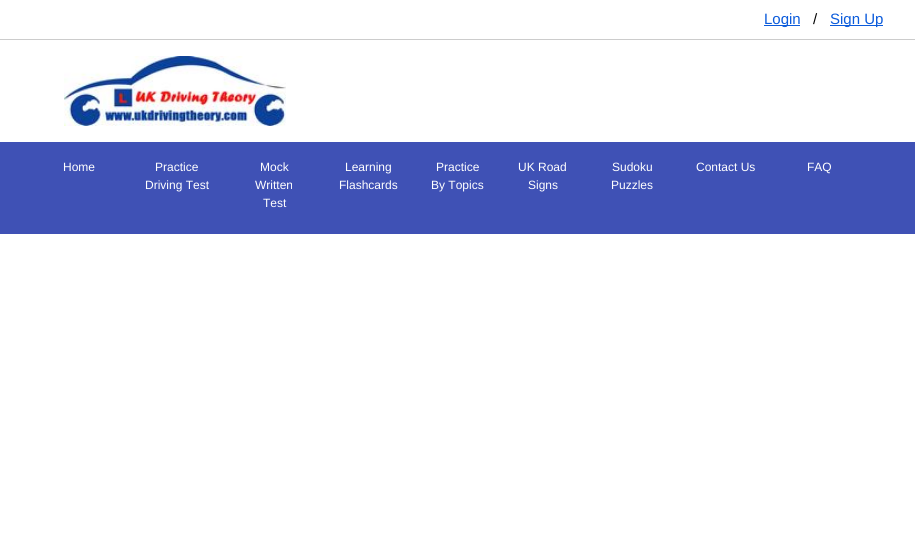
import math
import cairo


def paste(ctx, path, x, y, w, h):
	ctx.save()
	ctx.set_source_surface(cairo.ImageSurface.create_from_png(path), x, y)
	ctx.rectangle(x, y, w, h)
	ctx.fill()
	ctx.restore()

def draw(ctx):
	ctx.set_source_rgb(1, 1, 1)
	ctx.paint()
	ctx.set_source_rgb(0.8, 0.8, 0.8)
	ctx.rectangle(0, 39, 915, 1)
	ctx.fill()
	ctx.set_source_rgb(0.043, 0.357, 0.859)
	ctx.rectangle(764, 25, 36, 1)
	ctx.fill()
	ctx.select_font_face('Liberation Sans')
	ctx.set_font_size(15)
	ctx.move_to(764, 24)
	ctx.show_text('Login')
	ctx.set_source_rgb(0, 0, 0)
	ctx.move_to(813, 24)
	ctx.show_text('/')
	ctx.set_source_rgb(0.043, 0.357, 0.859)
	ctx.rectangle(830, 25, 53, 1)
	ctx.fill()
	ctx.move_to(830, 24)
	ctx.show_text('Sign Up')
	paste(ctx, 'media/1.png', 64, 56, 222, 70)
	ctx.set_source_rgb(0.247, 0.318, 0.71)
	ctx.rectangle(0, 142, 915, 92)
	ctx.fill()
	ctx.set_font_size(12)
	ctx.set_source_rgb(1, 1, 1)
	for x, y, s in [
		(63, 171, 'Home'),
		(155, 171, 'Practice'),
		(145, 189, 'Driving Test'),
		(260, 171, 'Mock'),
		(255, 189, 'Written'),
		(263, 207, 'Test'),
		(345, 171, 'Learning'),
		(339, 189, 'Flashcards'),
		(436, 171, 'Practice'),
		(431, 189, 'By Topics'),
		(518, 171, 'UK Road'),
		(528, 189, 'Signs'),
		(612, 171, 'Sudoku'),
		(611, 189, 'Puzzles'),
		(696, 171, 'Contact Us'),
		(807, 171, 'FAQ'),
	]:
		ctx.move_to(x, y)
		ctx.show_text(s)


surface = cairo.ImageSurface(cairo.FORMAT_RGB24, 915, 549)
ctx = cairo.Context(surface)
options = cairo.FontOptions()
options.set_hint_metrics(cairo.HINT_METRICS_OFF)
options.set_hint_style(cairo.HINT_STYLE_NONE)
ctx.set_font_options(options)
ctx.set_miter_limit(4)
draw(ctx)
surface.write_to_png('image.png')
